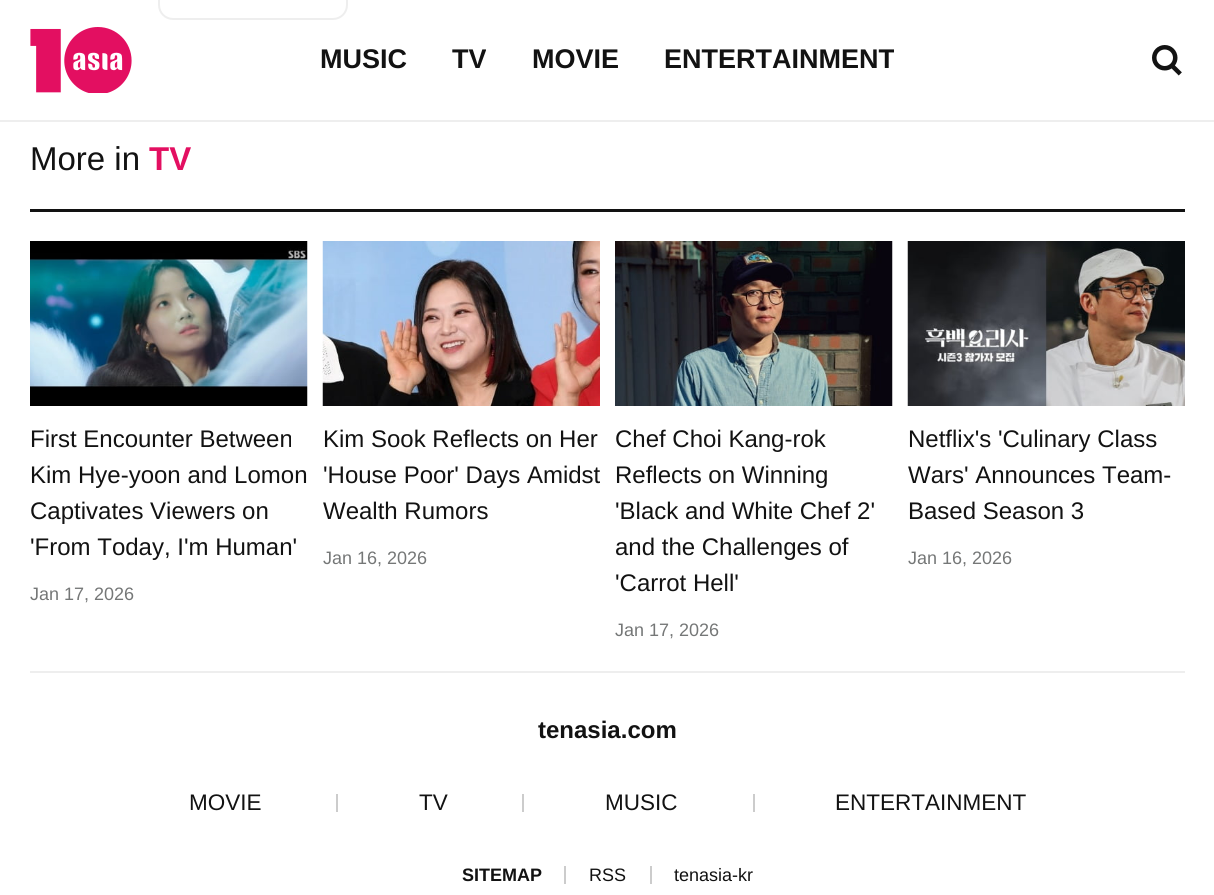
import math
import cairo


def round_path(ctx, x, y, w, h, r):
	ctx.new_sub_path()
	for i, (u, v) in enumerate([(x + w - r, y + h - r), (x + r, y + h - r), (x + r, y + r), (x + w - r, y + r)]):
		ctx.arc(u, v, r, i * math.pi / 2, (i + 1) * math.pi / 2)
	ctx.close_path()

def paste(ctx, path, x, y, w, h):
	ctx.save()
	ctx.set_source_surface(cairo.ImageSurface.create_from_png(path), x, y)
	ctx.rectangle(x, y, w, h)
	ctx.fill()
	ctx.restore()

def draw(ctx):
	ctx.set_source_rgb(1, 1, 1)
	ctx.paint()
	ctx.set_source_rgb(0.933, 0.933, 0.933)
	ctx.rectangle(0, 120, 1214, 2)
	ctx.fill()
	paste(ctx, 'media/1.png', 30, 27, 102, 66)
	paste(ctx, 'media/2.png', 1152, 45, 30, 31)
	ctx.select_font_face('Liberation Sans', cairo.FONT_SLANT_NORMAL, cairo.FONT_WEIGHT_BOLD)
	ctx.set_font_size(27)
	ctx.set_source_rgb(0.071, 0.071, 0.071)
	for x, y, s in [
		(320, 68, 'MUSIC'),
		(452, 68, 'TV'),
		(532, 68, 'MOVIE'),
	]:
		ctx.move_to(x, y)
		ctx.show_text(s)
	ctx.save()
	ctx.rectangle(320, 45, 574, 32)
	ctx.clip()
	ctx.move_to(664, 68)
	ctx.show_text('ENTERTAINMENT')
	ctx.restore()
	round_path(ctx, 159, -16, 188, 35, 14)
	ctx.set_source_rgb(0.933, 0.933, 0.933)
	ctx.stroke()
	ctx.set_source_rgb(0.071, 0.071, 0.071)
	ctx.rectangle(30, 209, 1155, 3)
	ctx.fill()
	ctx.select_font_face('Liberation Sans')
	ctx.set_font_size(33)
	ctx.move_to(30, 170)
	ctx.show_text('More in')
	ctx.select_font_face('Liberation Sans', cairo.FONT_SLANT_NORMAL, cairo.FONT_WEIGHT_BOLD)
	ctx.set_source_rgb(0.89, 0.059, 0.38)
	ctx.move_to(149, 170)
	ctx.show_text('TV')
	paste(ctx, 'media/3.png', 30, 241, 278, 165)
	ctx.select_font_face('Liberation Sans')
	ctx.set_font_size(24)
	ctx.set_source_rgb(0.071, 0.071, 0.071)
	for x, y, s in [
		(30, 447, 'First Encounter Between'),
		(30, 483, 'Kim Hye-yoon and Lomon'),
		(30, 519, 'Captivates Viewers on'),
		(30, 555, '\'From Today, I\'m Human\''),
	]:
		ctx.move_to(x, y)
		ctx.show_text(s)
	ctx.set_font_size(18)
	ctx.set_source_rgb(0.459, 0.467, 0.467)
	ctx.move_to(30, 600)
	ctx.show_text('Jan 17, 2026')
	paste(ctx, 'media/4.png', 322, 241, 278, 165)
	ctx.set_font_size(24)
	ctx.set_source_rgb(0.071, 0.071, 0.071)
	for x, y, s in [
		(323, 447, 'Kim Sook Reflects on Her'),
		(323, 483, '\'House Poor\' Days Amidst'),
		(323, 519, 'Wealth Rumors'),
	]:
		ctx.move_to(x, y)
		ctx.show_text(s)
	ctx.set_font_size(18)
	ctx.set_source_rgb(0.459, 0.467, 0.467)
	ctx.move_to(323, 564)
	ctx.show_text('Jan 16, 2026')
	paste(ctx, 'media/5.png', 615, 241, 278, 165)
	ctx.set_font_size(24)
	ctx.set_source_rgb(0.071, 0.071, 0.071)
	for x, y, s in [
		(615, 447, 'Chef Choi Kang-rok'),
		(615, 483, 'Reflects on Winning'),
		(615, 519, '\'Black and White Chef 2\''),
		(615, 555, 'and the Challenges of'),
		(615, 591, '\'Carrot Hell\''),
	]:
		ctx.move_to(x, y)
		ctx.show_text(s)
	ctx.set_font_size(18)
	ctx.set_source_rgb(0.459, 0.467, 0.467)
	ctx.move_to(615, 636)
	ctx.show_text('Jan 17, 2026')
	paste(ctx, 'media/6.png', 907, 241, 278, 165)
	ctx.set_font_size(24)
	ctx.set_source_rgb(0.071, 0.071, 0.071)
	for x, y, s in [
		(908, 447, 'Netflix\'s \'Culinary Class'),
		(908, 483, 'Wars\' Announces Team-'),
		(908, 519, 'Based Season 3'),
	]:
		ctx.move_to(x, y)
		ctx.show_text(s)
	ctx.set_font_size(18)
	ctx.set_source_rgb(0.459, 0.467, 0.467)
	ctx.move_to(908, 564)
	ctx.show_text('Jan 16, 2026')
	ctx.set_source_rgb(0.933, 0.933, 0.933)
	ctx.rectangle(30, 671, 1155, 2)
	ctx.fill()
	ctx.select_font_face('Liberation Sans', cairo.FONT_SLANT_NORMAL, cairo.FONT_WEIGHT_BOLD)
	ctx.set_font_size(24)
	ctx.set_source_rgb(0.071, 0.071, 0.071)
	ctx.move_to(538, 738)
	ctx.show_text('tenasia.com')
	ctx.select_font_face('Liberation Sans')
	ctx.set_font_size(22.5)
	ctx.move_to(189, 810)
	ctx.show_text('MOVIE')
	ctx.set_source_rgb(0.8, 0.8, 0.8)
	ctx.rectangle(336, 794, 2, 18)
	ctx.fill()
	ctx.set_source_rgb(0.071, 0.071, 0.071)
	ctx.move_to(419, 810)
	ctx.show_text('TV')
	ctx.set_source_rgb(0.8, 0.8, 0.8)
	ctx.rectangle(522, 794, 2, 18)
	ctx.fill()
	ctx.set_source_rgb(0.071, 0.071, 0.071)
	ctx.move_to(605, 810)
	ctx.show_text('MUSIC')
	ctx.set_source_rgb(0.8, 0.8, 0.8)
	ctx.rectangle(753, 794, 2, 18)
	ctx.fill()
	ctx.set_source_rgb(0.071, 0.071, 0.071)
	ctx.move_to(835, 810)
	ctx.show_text('ENTERTAINMENT')
	ctx.select_font_face('Liberation Sans', cairo.FONT_SLANT_NORMAL, cairo.FONT_WEIGHT_BOLD)
	ctx.set_font_size(18)
	ctx.move_to(462, 881)
	ctx.show_text('SITEMAP')
	ctx.set_source_rgb(0.8, 0.8, 0.8)
	ctx.rectangle(564, 866, 2, 18)
	ctx.fill()
	ctx.select_font_face('Liberation Sans')
	ctx.set_source_rgb(0.071, 0.071, 0.071)
	ctx.move_to(589, 881)
	ctx.show_text('RSS')
	ctx.set_source_rgb(0.8, 0.8, 0.8)
	ctx.rectangle(650, 866, 2, 18)
	ctx.fill()
	ctx.set_source_rgb(0.071, 0.071, 0.071)
	ctx.move_to(674, 881)
	ctx.show_text('tenasia-kr')


surface = cairo.ImageSurface(cairo.FORMAT_RGB24, 1214, 895)
ctx = cairo.Context(surface)
options = cairo.FontOptions()
options.set_hint_metrics(cairo.HINT_METRICS_OFF)
options.set_hint_style(cairo.HINT_STYLE_NONE)
ctx.set_font_options(options)
ctx.set_miter_limit(4)
draw(ctx)
surface.write_to_png('image.png')
